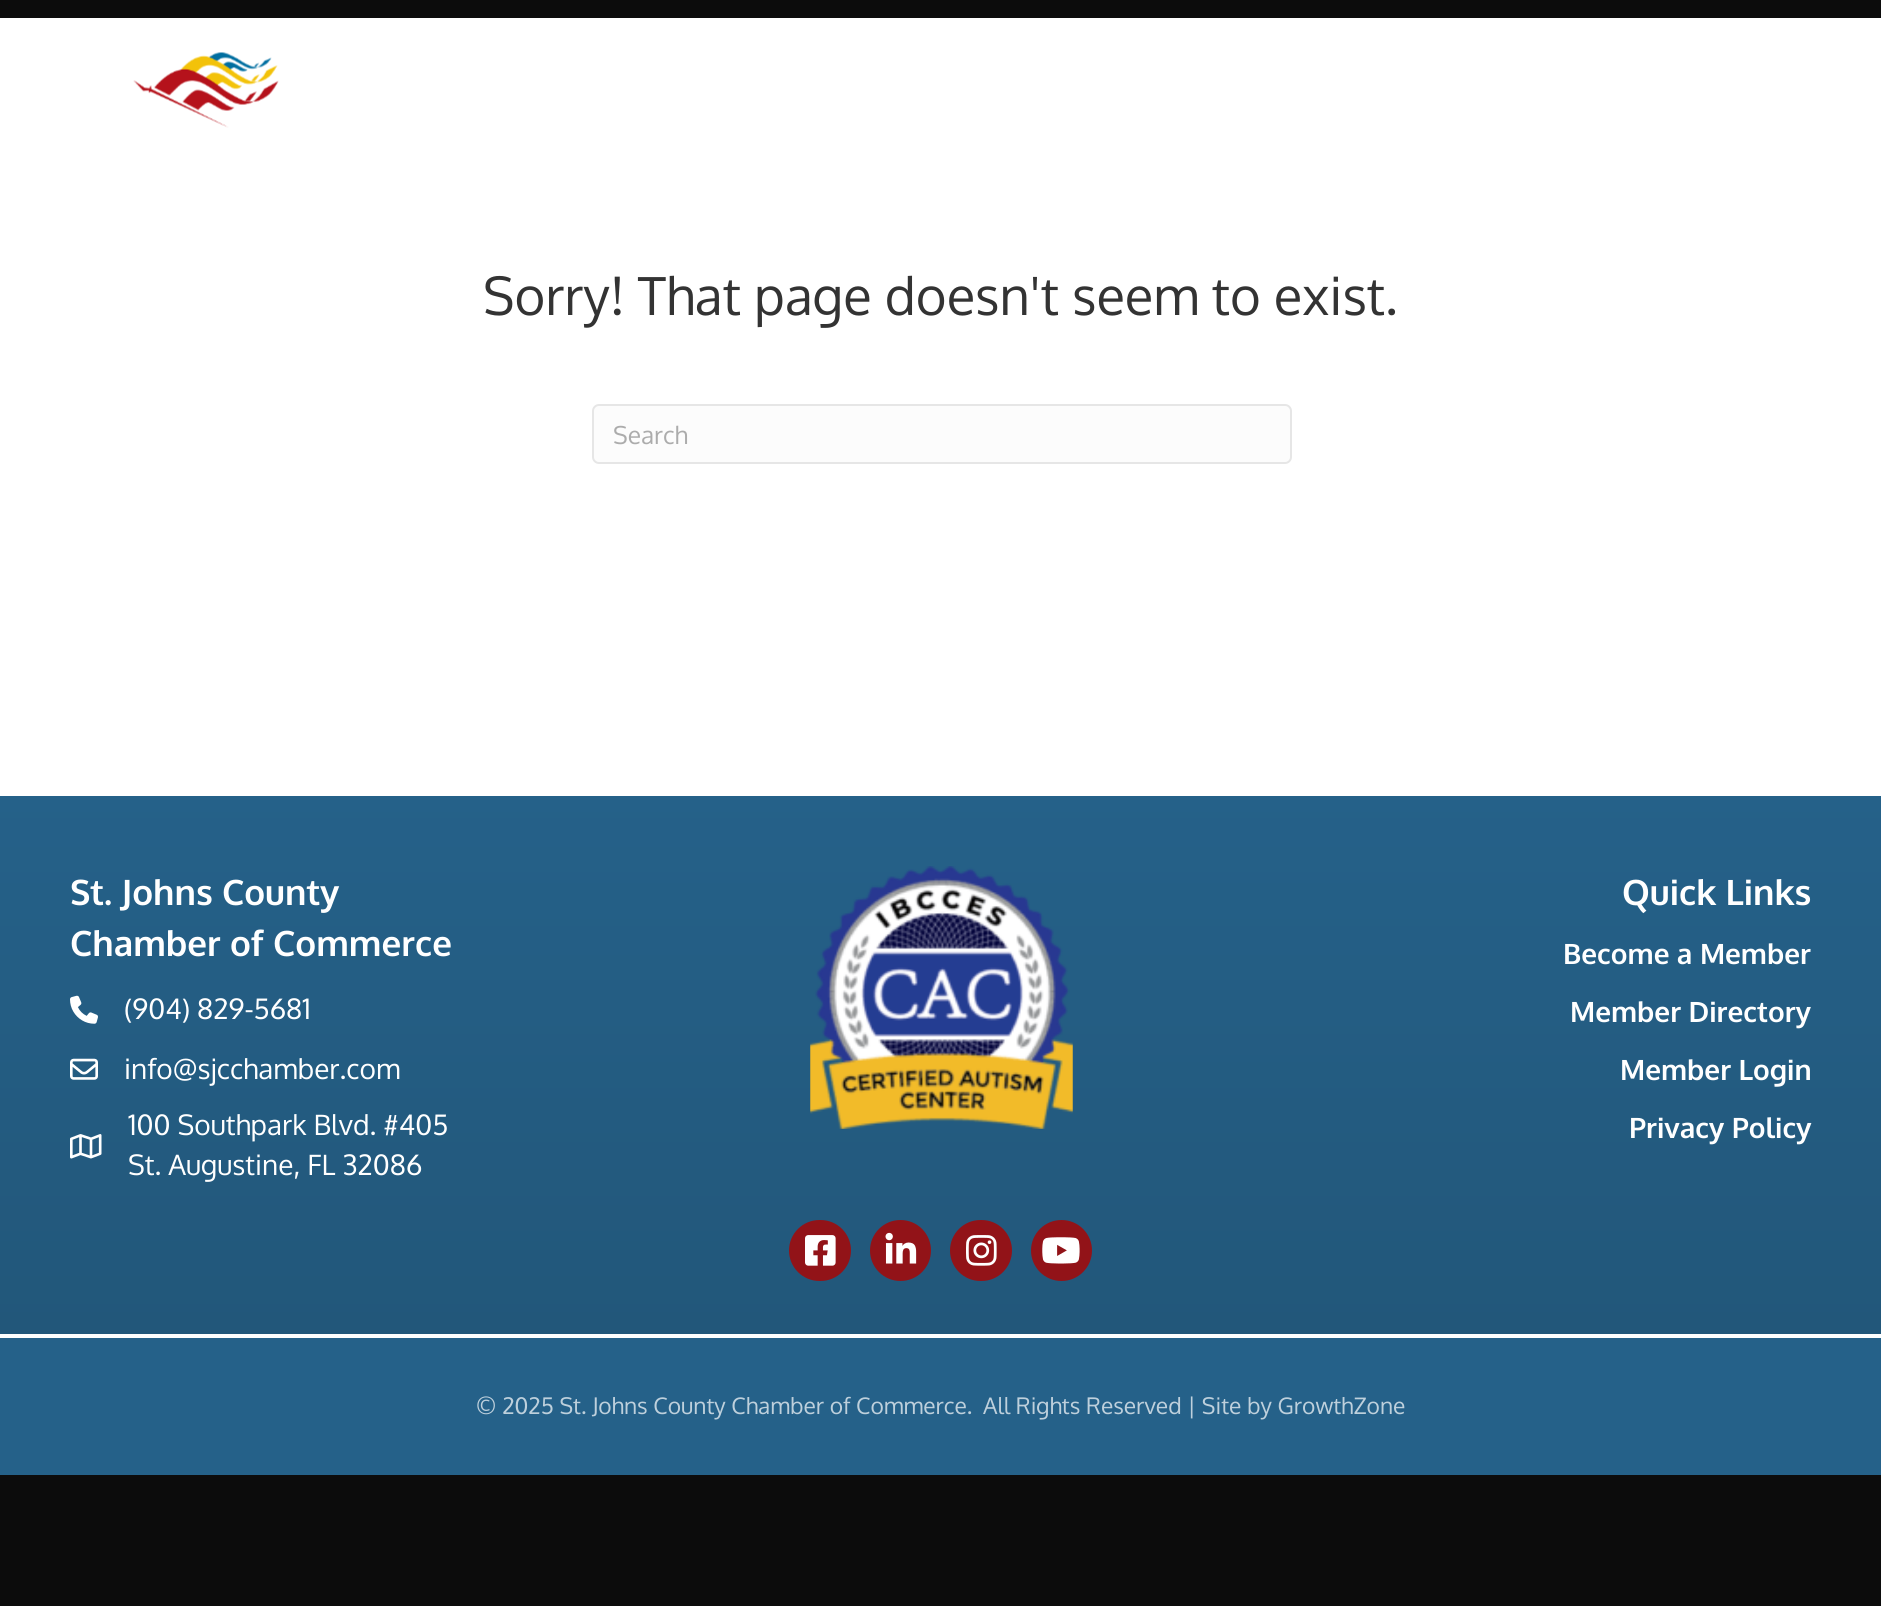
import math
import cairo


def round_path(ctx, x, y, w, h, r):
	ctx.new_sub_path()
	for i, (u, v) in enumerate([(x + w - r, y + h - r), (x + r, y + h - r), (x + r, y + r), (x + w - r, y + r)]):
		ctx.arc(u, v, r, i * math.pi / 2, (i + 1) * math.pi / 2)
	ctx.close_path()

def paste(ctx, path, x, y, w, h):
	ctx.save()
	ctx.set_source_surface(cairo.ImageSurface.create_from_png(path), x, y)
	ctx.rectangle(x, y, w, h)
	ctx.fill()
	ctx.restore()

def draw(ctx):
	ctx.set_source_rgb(0.047, 0.047, 0.047)
	ctx.paint()
	ctx.set_source_rgb(1, 1, 1)
	ctx.rectangle(0, 18, 1881, 778)
	ctx.fill()
	paste(ctx, 'media/1.png', 133, 52, 146, 76)
	ctx.select_font_face('Oxygen')
	ctx.set_font_size(52.5)
	ctx.set_source_rgb(0.2, 0.2, 0.2)
	ctx.move_to(483, 315)
	ctx.show_text('Sorry! That page doesn\'t seem to exist.')
	ctx.set_source_rgb(0.988, 0.988, 0.988)
	round_path(ctx, 593, 405, 698, 58, 6)
	ctx.fill_preserve()
	ctx.set_source_rgb(0.902, 0.902, 0.902)
	ctx.stroke()
	ctx.set_font_size(24.5)
	ctx.set_source_rgb(0.675, 0.675, 0.675)
	ctx.move_to(613, 444)
	ctx.show_text('Search')
	gradient = cairo.LinearGradient(941, 1334, 941, 796)
	gradient.add_color_stop_rgba(0, 0.133, 0.341, 0.478, 1)
	gradient.add_color_stop_rgba(1, 0.145, 0.38, 0.537, 1)
	ctx.set_source(gradient)
	ctx.rectangle(0, 796, 1881, 538)
	ctx.fill()
	ctx.select_font_face('Oxygen', cairo.FONT_SLANT_NORMAL, cairo.FONT_WEIGHT_BOLD)
	ctx.set_font_size(35)
	ctx.set_source_rgb(1, 1, 1)
	ctx.move_to(70, 905)
	ctx.show_text('St. Johns County')
	ctx.move_to(70, 956)
	ctx.show_text('Chamber of Commerce')
	paste(ctx, 'media/2.png', 70, 995, 28, 29)
	ctx.select_font_face('Oxygen')
	ctx.set_font_size(28)
	ctx.move_to(124, 1019)
	ctx.show_text('(904) 829-5681')
	paste(ctx, 'media/3.png', 70, 1058, 28, 22)
	ctx.move_to(124, 1079)
	ctx.show_text('info@sjcchamber.com')
	paste(ctx, 'media/4.png', 70, 1134, 32, 25)
	ctx.move_to(128, 1135)
	ctx.show_text('100 Southpark Blvd. #405')
	ctx.move_to(128, 1175)
	ctx.show_text('St. Augustine, FL 32086')
	paste(ctx, 'media/5.png', 810, 866, 263, 263)
	ctx.select_font_face('Oxygen', cairo.FONT_SLANT_NORMAL, cairo.FONT_WEIGHT_BOLD)
	ctx.set_font_size(35)
	ctx.move_to(1622, 905)
	ctx.show_text('Quick Links')
	ctx.set_font_size(28)
	for x, y, s in [
		(1563, 964, 'Become a Member'),
		(1570, 1022, 'Member Directory'),
		(1620, 1080, 'Member Login'),
		(1629, 1138, 'Privacy Policy'),
	]:
		ctx.move_to(x, y)
		ctx.show_text(s)
	ctx.set_source_rgb(0.573, 0.078, 0.094)
	round_path(ctx, 789, 1220, 62, 61, 30.5)
	ctx.fill()
	paste(ctx, 'media/6.png', 805, 1235, 31, 31)
	ctx.arc(900.5, 1250.5, 30.5, 0, 2 * math.pi)
	ctx.fill()
	paste(ctx, 'media/7.png', 885, 1232, 32, 32)
	round_path(ctx, 950, 1220, 62, 61, 30.5)
	ctx.fill()
	paste(ctx, 'media/8.png', 966, 1235, 31, 31)
	ctx.arc(1061.5, 1250.5, 30.5, 0, 2 * math.pi)
	ctx.fill()
	paste(ctx, 'media/9.png', 1042, 1237, 38, 27)
	ctx.set_source_rgb(0.145, 0.38, 0.537)
	ctx.rectangle(0, 1338, 1881, 137)
	ctx.fill()
	ctx.set_source_rgb(1, 1, 1)
	ctx.rectangle(0, 1334, 1881, 4)
	ctx.fill()
	ctx.select_font_face('Oxygen')
	ctx.set_font_size(22.75)
	ctx.set_source_rgb(0.745, 0.816, 0.863)
	ctx.move_to(476, 1414)
	ctx.show_text('© 2025 St. Johns County Chamber of Commerce.')
	ctx.move_to(983, 1414)
	ctx.show_text('All Rights Reserved | Site by GrowthZone')


surface = cairo.ImageSurface(cairo.FORMAT_RGB24, 1881, 1606)
ctx = cairo.Context(surface)
options = cairo.FontOptions()
options.set_hint_metrics(cairo.HINT_METRICS_OFF)
options.set_hint_style(cairo.HINT_STYLE_NONE)
ctx.set_font_options(options)
ctx.set_miter_limit(4)
draw(ctx)
surface.write_to_png('image.png')
